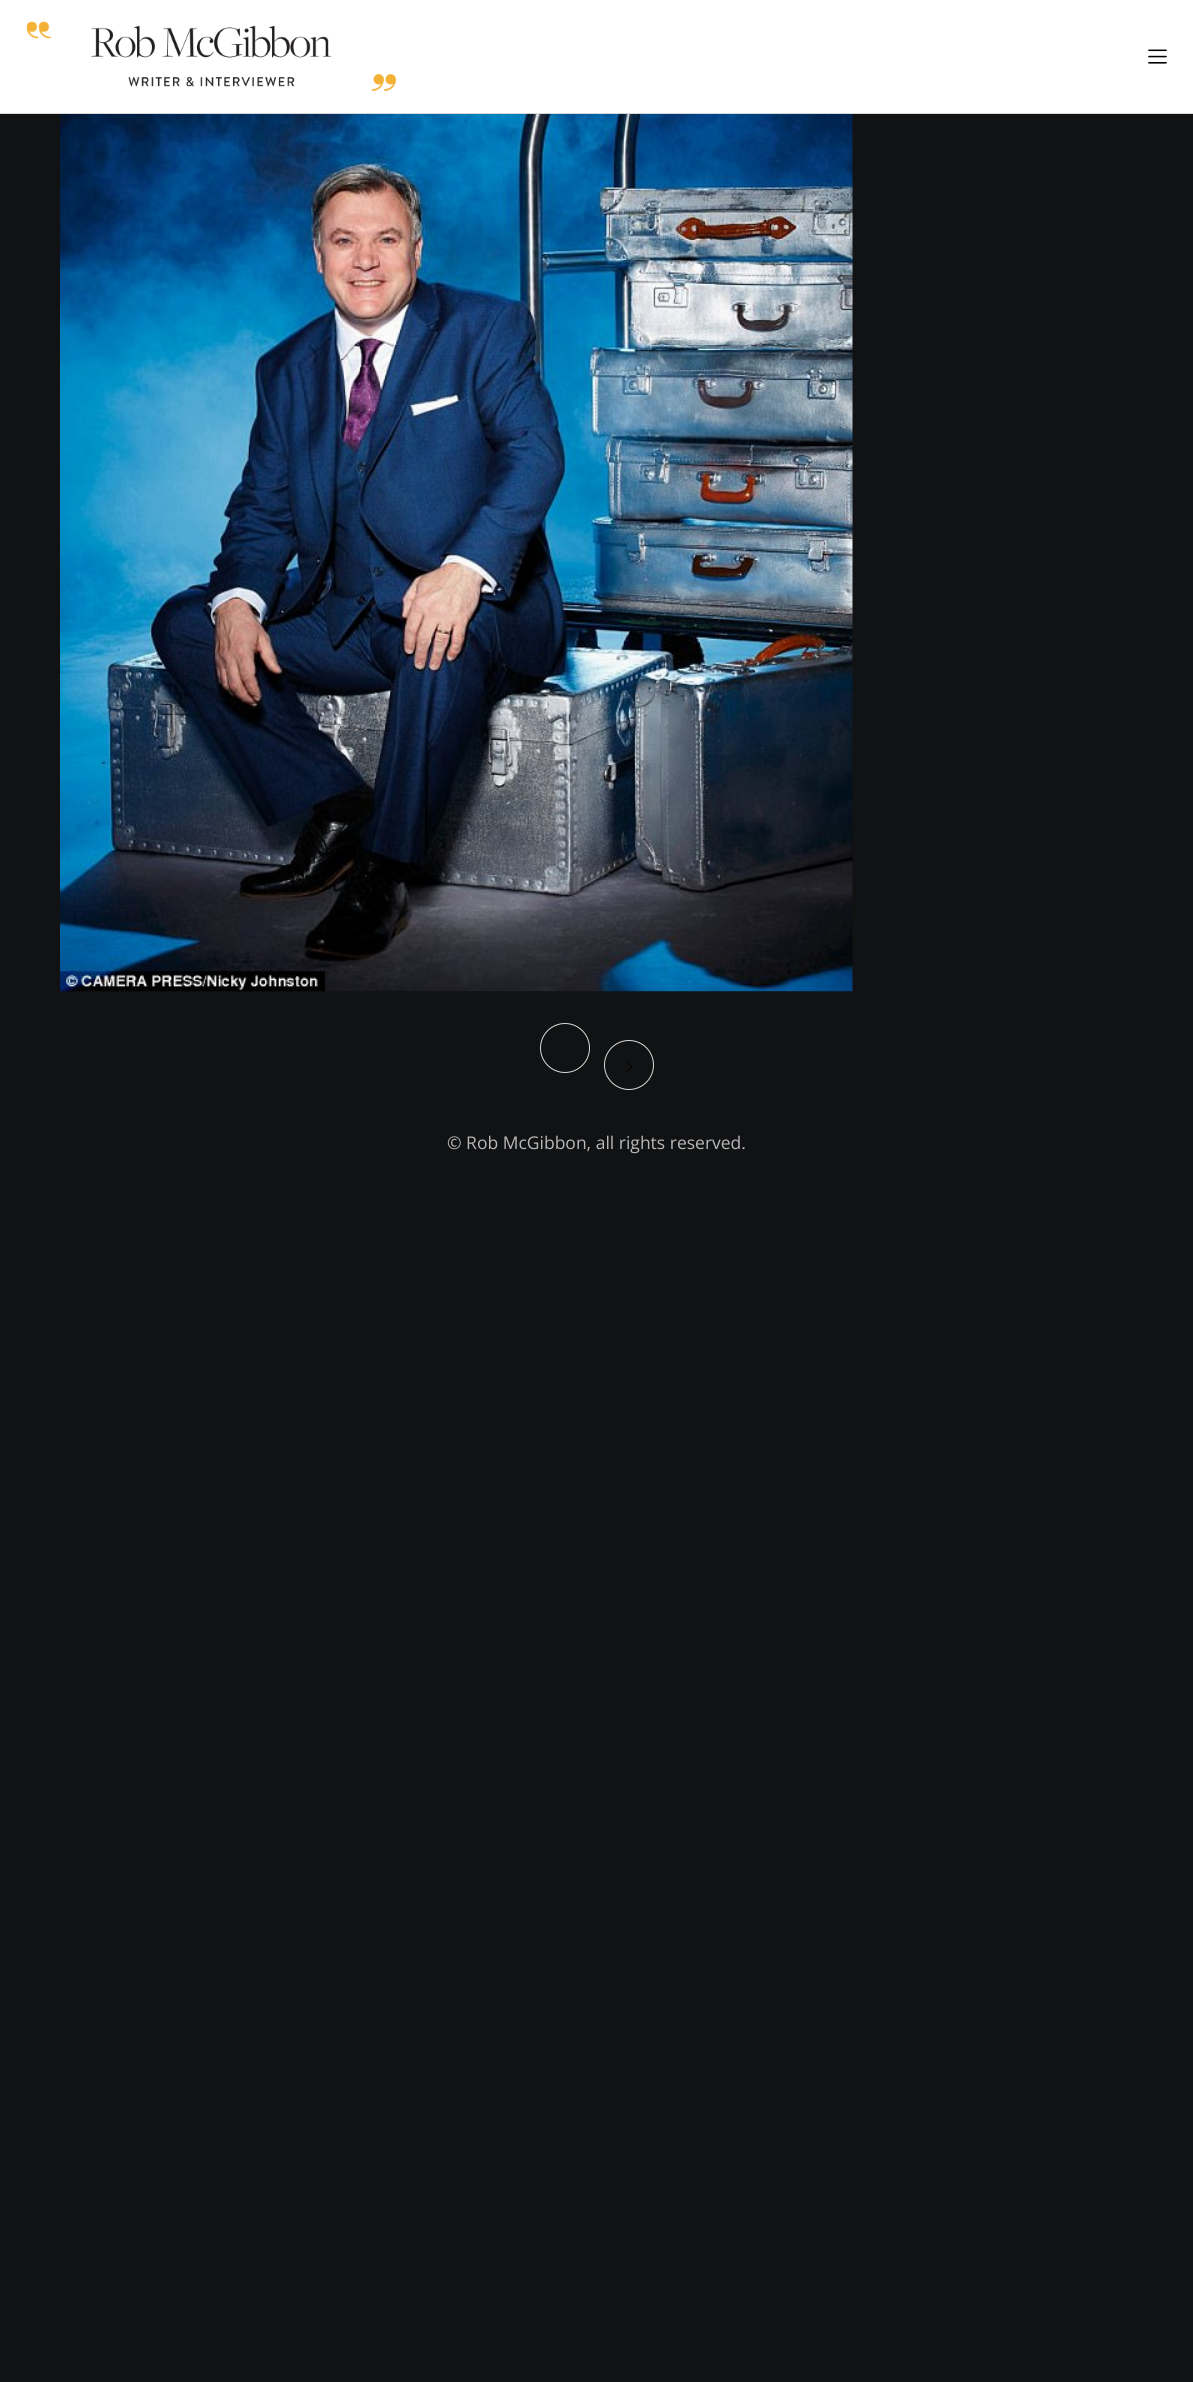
import math
import cairo


def paste(ctx, path, x, y, w, h):
	ctx.save()
	ctx.set_source_surface(cairo.ImageSurface.create_from_png(path), x, y)
	ctx.rectangle(x, y, w, h)
	ctx.fill()
	ctx.restore()

def draw(ctx):
	ctx.set_source_rgb(0.067, 0.071, 0.075)
	ctx.paint()
	ctx.set_source_rgb(1, 1, 1)
	ctx.rectangle(0, 0, 1193, 113)
	ctx.fill()
	ctx.set_source_rgb(0.847, 0.847, 0.847)
	ctx.rectangle(0, 113, 1193, 1)
	ctx.fill()
	paste(ctx, 'media/1.png', 26, 21, 370, 70)
	paste(ctx, 'media/2.png', 1148, 49, 19, 15)
	paste(ctx, 'media/3.png', 60, 114, 793, 878)
	ctx.arc(565, 1048, 24.5, 0, 2 * math.pi)
	ctx.set_line_width(1)
	ctx.stroke()
	ctx.arc(629, 1065, 24.5, 0, 2 * math.pi)
	ctx.stroke()
	paste(ctx, 'media/4.png', 626, 1061, 6, 12)
	ctx.select_font_face('Open Sans')
	ctx.set_font_size(17.5)
	ctx.set_source_rgb(0.722, 0.722, 0.725)
	ctx.move_to(447, 1149)
	ctx.show_text('© Rob McGibbon, all rights reserved.')


surface = cairo.ImageSurface(cairo.FORMAT_RGB24, 1193, 2382)
ctx = cairo.Context(surface)
options = cairo.FontOptions()
options.set_hint_metrics(cairo.HINT_METRICS_OFF)
options.set_hint_style(cairo.HINT_STYLE_NONE)
ctx.set_font_options(options)
ctx.set_miter_limit(4)
draw(ctx)
surface.write_to_png('image.png')
